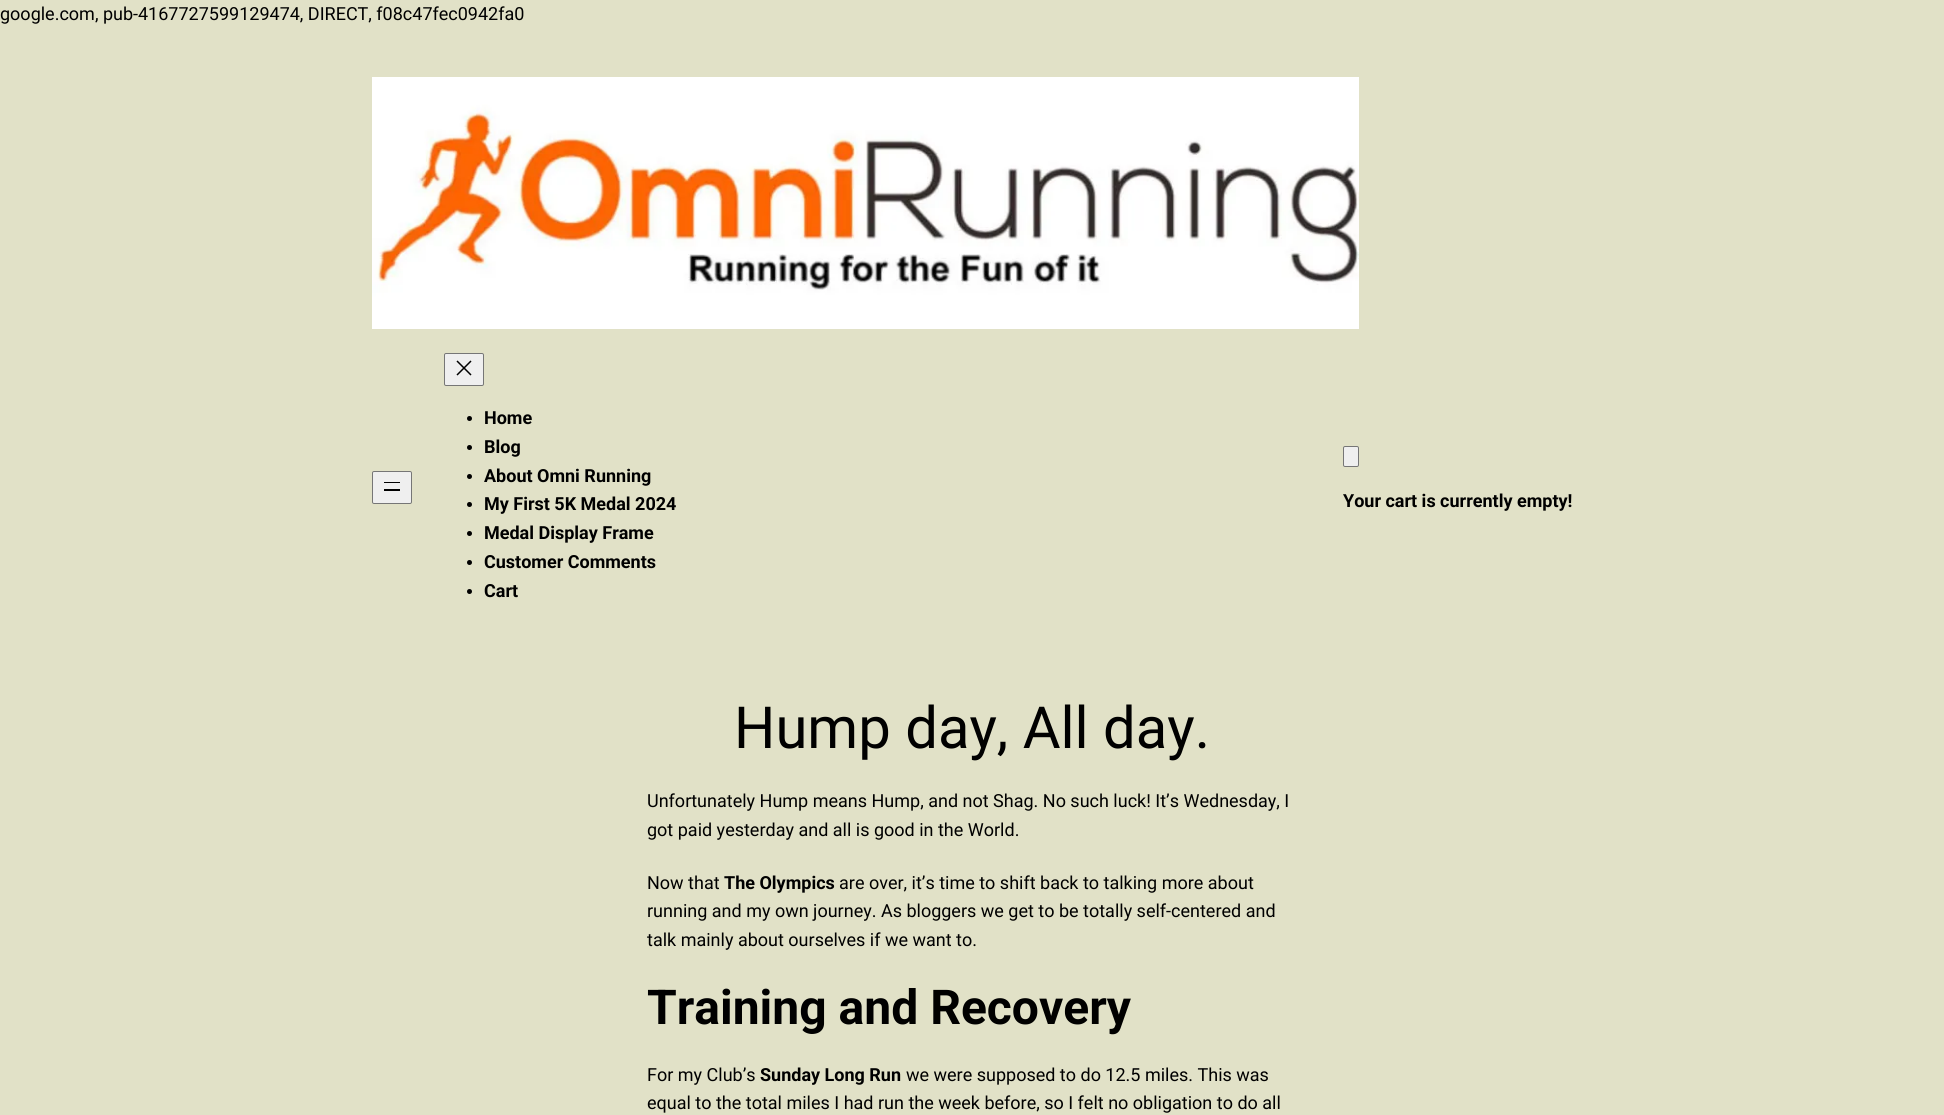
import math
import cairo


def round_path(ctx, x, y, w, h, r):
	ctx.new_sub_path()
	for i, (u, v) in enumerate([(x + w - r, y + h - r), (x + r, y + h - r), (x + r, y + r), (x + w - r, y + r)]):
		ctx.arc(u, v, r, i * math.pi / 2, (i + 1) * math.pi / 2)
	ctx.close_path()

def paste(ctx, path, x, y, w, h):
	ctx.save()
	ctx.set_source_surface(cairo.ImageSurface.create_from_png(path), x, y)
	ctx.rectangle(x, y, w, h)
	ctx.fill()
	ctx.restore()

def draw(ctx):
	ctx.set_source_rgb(0.882, 0.882, 0.78)
	ctx.paint()
	ctx.select_font_face('Roboto')
	ctx.set_font_size(18)
	ctx.set_source_rgb(0, 0, 0)
	ctx.move_to(0, 20)
	ctx.show_text('google.com, pub-4167727599129474, DIRECT, f08c47fec0942fa0')
	paste(ctx, 'media/1.png', 372, 77, 987, 252)
	ctx.set_source_rgb(0.937, 0.937, 0.937)
	round_path(ctx, 372.5, 471.5, 39, 32, 1.5)
	ctx.fill_preserve()
	ctx.set_source_rgb(0.463, 0.463, 0.463)
	ctx.set_line_width(1)
	ctx.stroke()
	ctx.set_source_rgb(0, 0, 0)
	ctx.rectangle(384, 482, 16, 1)
	ctx.fill()
	ctx.rectangle(384, 489, 16, 2)
	ctx.fill()
	ctx.set_source_rgb(0.937, 0.937, 0.937)
	round_path(ctx, 444.5, 353.5, 39, 32, 1.5)
	ctx.fill_preserve()
	ctx.set_source_rgb(0.463, 0.463, 0.463)
	ctx.stroke()
	paste(ctx, 'media/2.png', 456, 360, 16, 16)
	ctx.set_source_rgb(0, 0, 0)
	ctx.arc(469.5, 418.5, 2.5, 0, 2 * math.pi)
	ctx.fill()
	ctx.select_font_face('Roboto', cairo.FONT_SLANT_NORMAL, cairo.FONT_WEIGHT_BOLD)
	ctx.move_to(484, 424)
	ctx.show_text('Home')
	ctx.new_path()
	ctx.arc(469.5, 447.5, 2.5, 0, 2 * math.pi)
	ctx.fill()
	ctx.move_to(484, 453)
	ctx.show_text('Blog')
	ctx.new_path()
	ctx.arc(469.5, 476.5, 2.5, 0, 2 * math.pi)
	ctx.fill()
	ctx.move_to(484, 482)
	ctx.show_text('About Omni Running')
	ctx.new_path()
	ctx.arc(469.5, 504.5, 2.5, 0, 2 * math.pi)
	ctx.fill()
	ctx.move_to(484, 510)
	ctx.show_text('My First 5K Medal 2024')
	ctx.new_path()
	ctx.arc(469.5, 533.5, 2.5, 0, 2 * math.pi)
	ctx.fill()
	ctx.move_to(484, 539)
	ctx.show_text('Medal Display Frame')
	ctx.new_path()
	ctx.arc(469.5, 562.5, 2.5, 0, 2 * math.pi)
	ctx.fill()
	ctx.move_to(484, 568)
	ctx.show_text('Customer Comments')
	ctx.new_path()
	ctx.arc(469.5, 591.5, 2.5, 0, 2 * math.pi)
	ctx.fill()
	ctx.move_to(484, 597)
	ctx.show_text('Cart')
	ctx.set_source_rgb(0.937, 0.937, 0.937)
	round_path(ctx, 1343.5, 446.5, 15, 20, 1.5)
	ctx.fill_preserve()
	ctx.set_source_rgb(0.463, 0.463, 0.463)
	ctx.stroke()
	ctx.set_source_rgb(0, 0, 0)
	ctx.move_to(1343, 507)
	ctx.show_text('Your cart is currently empty!')
	ctx.select_font_face('Roboto')
	ctx.set_font_size(58)
	ctx.move_to(734, 748)
	ctx.show_text('Hump day, All day.')
	ctx.set_font_size(18)
	for x, y, s in [
		(647, 807, 'Unfortunately Hump means Hump, and not Shag. No such luck! It’s Wednesday, I'),
		(647, 836, 'got paid yesterday and all is good in the World.'),
		(647, 889, 'Now that'),
	]:
		ctx.move_to(x, y)
		ctx.show_text(s)
	ctx.select_font_face('Roboto', cairo.FONT_SLANT_NORMAL, cairo.FONT_WEIGHT_BOLD)
	ctx.move_to(724, 889)
	ctx.show_text('The Olympics')
	ctx.select_font_face('Roboto')
	for x, y, s in [
		(839, 889, 'are over, it’s time to shift back to talking more about'),
		(647, 917, 'running and my own journey. As bloggers we get to be totally self-centered and'),
		(647, 946, 'talk mainly about ourselves if we want to.'),
	]:
		ctx.move_to(x, y)
		ctx.show_text(s)
	ctx.select_font_face('Roboto', cairo.FONT_SLANT_NORMAL, cairo.FONT_WEIGHT_BOLD)
	ctx.set_font_size(48)
	ctx.move_to(647, 1024)
	ctx.show_text('Training and Recovery')
	ctx.select_font_face('Roboto')
	ctx.set_font_size(18)
	ctx.move_to(647, 1081)
	ctx.show_text('For my Club’s')
	ctx.select_font_face('Roboto', cairo.FONT_SLANT_NORMAL, cairo.FONT_WEIGHT_BOLD)
	ctx.move_to(760, 1081)
	ctx.show_text('Sunday Long Run')
	ctx.select_font_face('Roboto')
	ctx.move_to(906, 1081)
	ctx.show_text('we were supposed to do 12.5 miles. This was')
	ctx.move_to(647, 1109)
	ctx.show_text('equal to the total miles I had run the week before, so I felt no obligation to do all')


surface = cairo.ImageSurface(cairo.FORMAT_RGB24, 1944, 1115)
ctx = cairo.Context(surface)
options = cairo.FontOptions()
options.set_hint_metrics(cairo.HINT_METRICS_OFF)
options.set_hint_style(cairo.HINT_STYLE_NONE)
ctx.set_font_options(options)
ctx.set_miter_limit(4)
draw(ctx)
surface.write_to_png('image.png')
